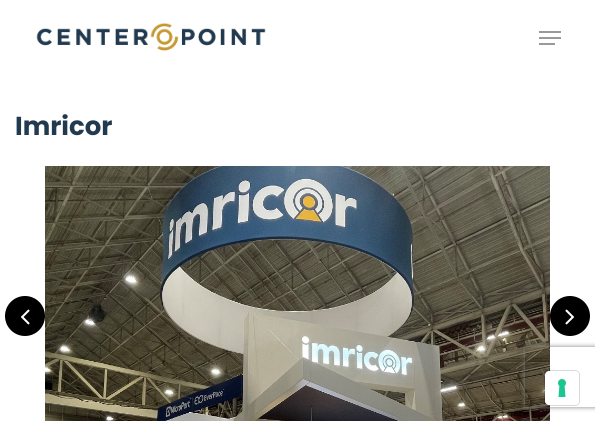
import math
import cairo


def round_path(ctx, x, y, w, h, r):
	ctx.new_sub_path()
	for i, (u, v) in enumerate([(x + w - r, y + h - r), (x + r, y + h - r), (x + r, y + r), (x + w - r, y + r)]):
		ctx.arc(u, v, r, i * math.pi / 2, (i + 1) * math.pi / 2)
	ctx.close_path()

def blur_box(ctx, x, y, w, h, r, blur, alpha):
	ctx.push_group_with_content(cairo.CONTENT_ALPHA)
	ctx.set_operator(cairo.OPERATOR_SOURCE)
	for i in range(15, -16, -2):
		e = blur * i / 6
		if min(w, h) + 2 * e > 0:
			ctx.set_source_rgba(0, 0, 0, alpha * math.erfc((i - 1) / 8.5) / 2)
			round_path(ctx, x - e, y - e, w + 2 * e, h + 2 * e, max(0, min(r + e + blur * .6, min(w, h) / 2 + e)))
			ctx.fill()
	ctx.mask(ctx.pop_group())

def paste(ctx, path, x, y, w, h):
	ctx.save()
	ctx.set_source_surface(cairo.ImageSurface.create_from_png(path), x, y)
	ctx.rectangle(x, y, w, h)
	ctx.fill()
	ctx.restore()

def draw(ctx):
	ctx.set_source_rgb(1, 1, 1)
	ctx.paint()
	paste(ctx, 'media/1.png', 36, 23, 230, 28)
	ctx.set_source_rgb(0.6, 0.6, 0.6)
	ctx.rectangle(539, 31, 22, 2)
	ctx.rectangle(539, 43, 16, 2)
	ctx.rectangle(539, 37, 22, 2)
	ctx.fill()
	ctx.select_font_face('Poppins', cairo.FONT_SLANT_NORMAL, cairo.FONT_WEIGHT_BOLD)
	ctx.set_font_size(26)
	ctx.set_source_rgb(0.133, 0.227, 0.31)
	ctx.move_to(15, 135)
	ctx.show_text('Imricor')
	ctx.set_source_rgb(0, 0, 0)
	ctx.new_path()
	ctx.arc(25, 316, 20, 0, 2 * math.pi)
	ctx.fill()
	paste(ctx, 'media/2.png', 21, 309, 9, 16)
	paste(ctx, 'media/3.png', 45, 166, 505, 255)
	ctx.arc(570, 316, 20, 0, 2 * math.pi)
	ctx.fill()
	paste(ctx, 'media/4.png', 565, 309, 9, 16)
	ctx.save()
	ctx.set_fill_rule(cairo.FILL_RULE_EVEN_ODD)
	ctx.new_path()
	ctx.move_to(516, 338)
	ctx.line_to(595, 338)
	ctx.line_to(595, 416)
	ctx.line_to(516, 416)
	ctx.close_path()
	ctx.move_to(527, 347)
	ctx.line_to(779, 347)
	ctx.curve_to(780, 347, 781, 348, 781, 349)
	ctx.line_to(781, 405)
	ctx.curve_to(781, 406, 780, 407, 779, 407)
	ctx.line_to(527, 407)
	ctx.curve_to(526, 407, 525, 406, 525, 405)
	ctx.line_to(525, 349)
	ctx.curve_to(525, 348, 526, 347, 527, 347)
	ctx.close_path()
	ctx.clip()
	ctx.set_source_rgb(0.502, 0.502, 0.502)
	blur_box(ctx, 525, 347, 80, 60, 2, 2.5, 1)
	ctx.restore()
	round_path(ctx, 544.5, 370.5, 35, 35, 4.5)
	ctx.set_source_rgba(0, 0, 0, 0.15)
	ctx.set_line_width(1)
	ctx.stroke()
	ctx.set_source_rgb(1, 1, 1)
	round_path(ctx, 545, 371, 34, 34, 4)
	ctx.fill()
	paste(ctx, 'media/5.png', 558, 379, 8, 18)


surface = cairo.ImageSurface(cairo.FORMAT_RGB24, 595, 421)
ctx = cairo.Context(surface)
options = cairo.FontOptions()
options.set_hint_metrics(cairo.HINT_METRICS_OFF)
options.set_hint_style(cairo.HINT_STYLE_NONE)
ctx.set_font_options(options)
ctx.set_miter_limit(4)
draw(ctx)
surface.write_to_png('image.png')
